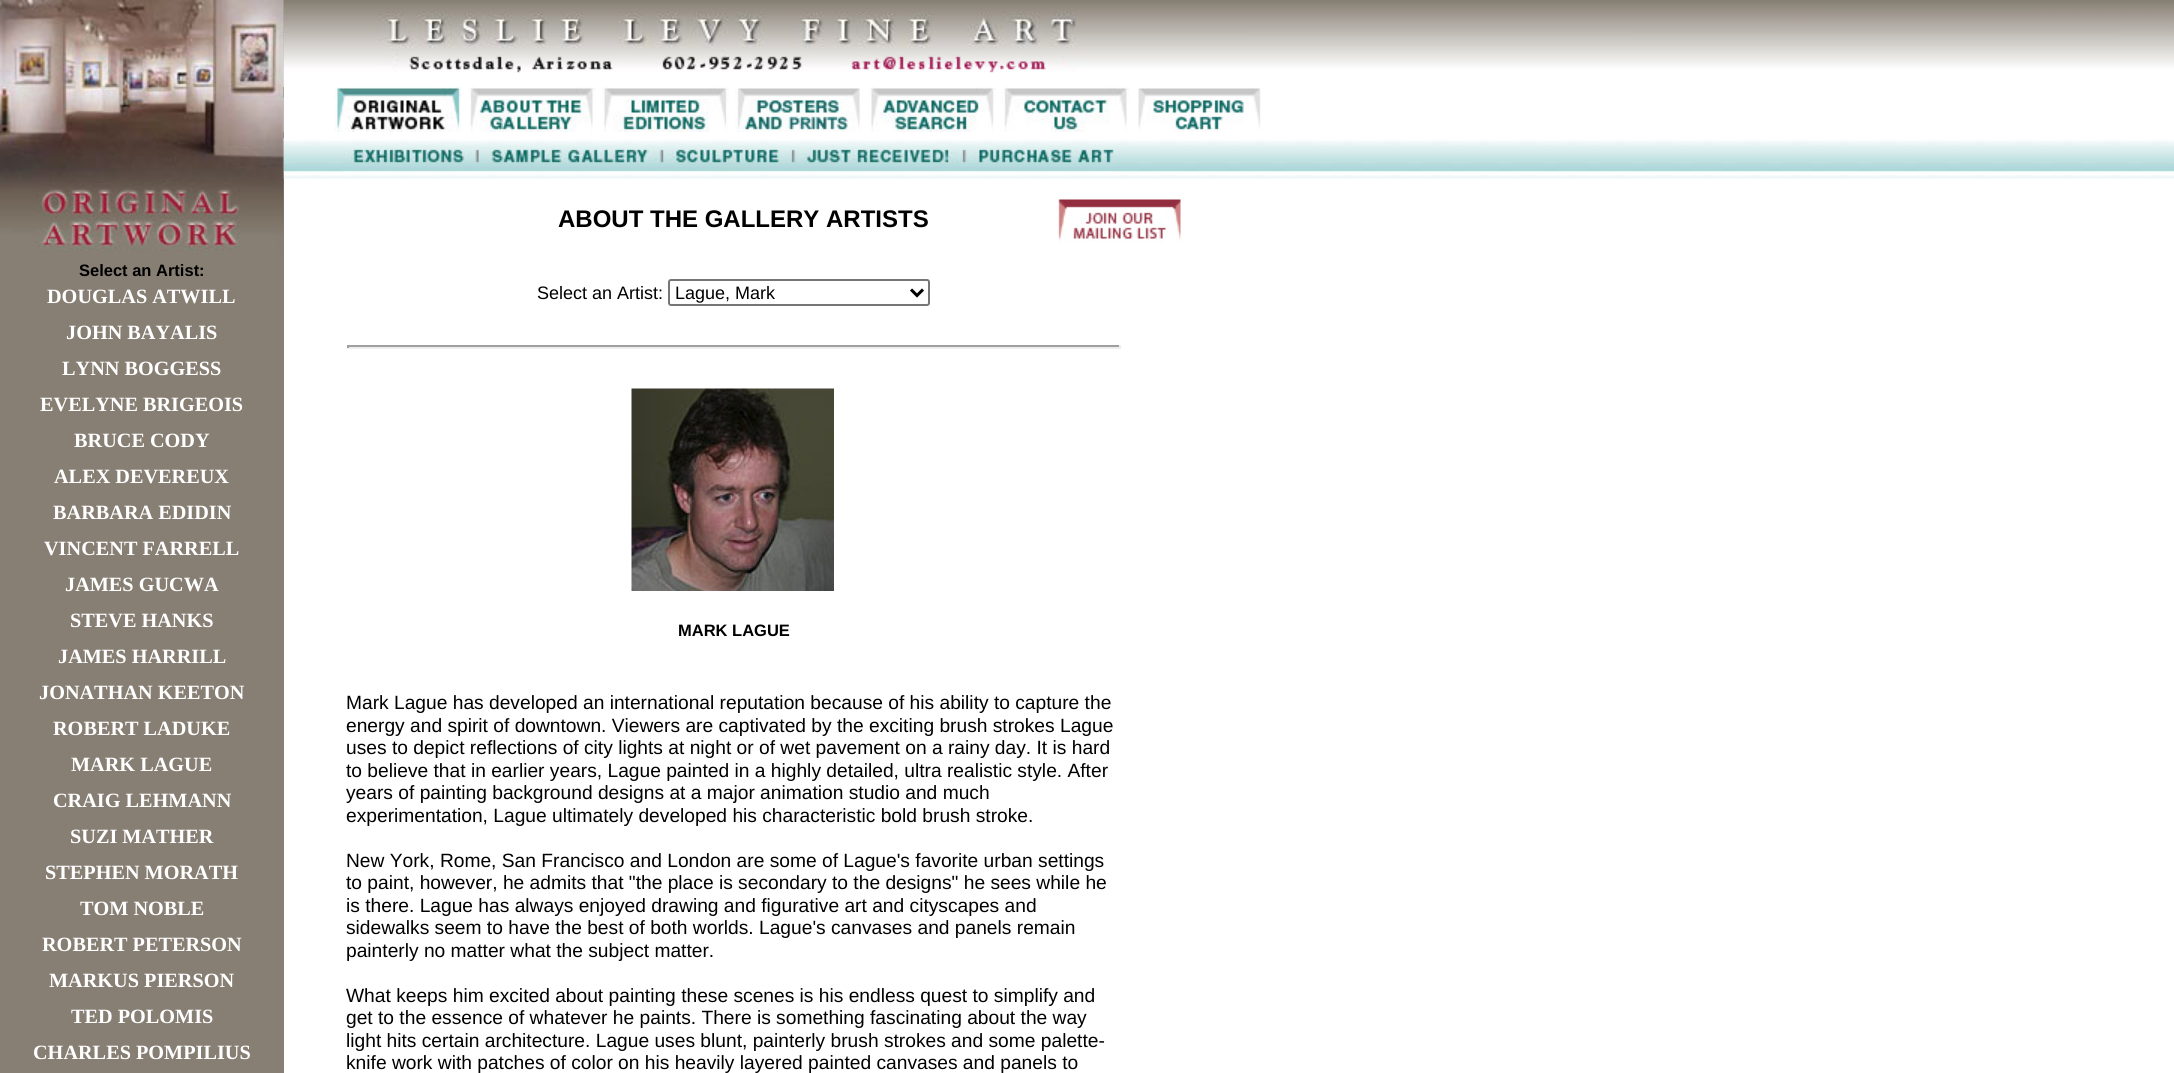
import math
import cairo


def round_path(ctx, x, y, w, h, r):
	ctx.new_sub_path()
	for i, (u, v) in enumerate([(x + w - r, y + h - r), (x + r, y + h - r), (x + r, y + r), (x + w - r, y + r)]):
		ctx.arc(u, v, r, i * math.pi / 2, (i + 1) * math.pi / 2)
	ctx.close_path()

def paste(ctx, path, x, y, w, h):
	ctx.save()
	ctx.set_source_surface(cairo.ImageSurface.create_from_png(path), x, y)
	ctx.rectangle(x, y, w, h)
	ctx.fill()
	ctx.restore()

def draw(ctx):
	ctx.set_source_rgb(1, 1, 1)
	ctx.paint()
	ctx.set_source_rgb(0.529, 0.498, 0.455)
	ctx.rectangle(0, 0, 284, 1073)
	ctx.fill()
	paste(ctx, 'media/2.png', 283, 0, 1891, 87)
	paste(ctx, 'media/3.png', 283, 9, 793, 78)
	paste(ctx, 'media/4.png', 283, 97, 1, 35)
	paste(ctx, 'media/12.png', 283, 138, 1891, 41)
	paste(ctx, 'media/13.png', 283, 138, 1, 35)
	paste(ctx, 'media/1.png', 0, 0, 284, 252)
	paste(ctx, 'media/5.png', 334, 87, 128, 45)
	paste(ctx, 'media/6.png', 468, 87, 128, 45)
	paste(ctx, 'media/7.png', 602, 87, 127, 45)
	paste(ctx, 'media/8.png', 735, 88, 126, 44)
	paste(ctx, 'media/9.png', 869, 87, 127, 45)
	paste(ctx, 'media/10.png', 1002, 87, 128, 45)
	paste(ctx, 'media/11.png', 1138, 88, 123, 44)
	paste(ctx, 'media/14.png', 346, 149, 768, 23)
	ctx.select_font_face('Liberation Sans', cairo.FONT_SLANT_NORMAL, cairo.FONT_WEIGHT_BOLD)
	ctx.set_font_size(24)
	ctx.set_source_rgb(0, 0, 0)
	ctx.move_to(558, 227)
	ctx.show_text('ABOUT THE GALLERY ARTISTS')
	paste(ctx, 'media/15.png', 1056, 199, 125, 44)
	ctx.set_font_size(16.5)
	ctx.move_to(79, 276)
	ctx.show_text('Select an Artist:')
	ctx.select_font_face('Liberation Serif', cairo.FONT_SLANT_NORMAL, cairo.FONT_WEIGHT_BOLD)
	ctx.set_font_size(20.25)
	ctx.set_source_rgb(1, 1, 1)
	for x, y, s in [
		(47, 303, 'DOUGLAS ATWILL'),
		(66, 339, 'JOHN BAYALIS'),
		(62, 375, 'LYNN BOGGESS'),
		(40, 411, 'EVELYNE BRIGEOIS'),
		(74, 447, 'BRUCE CODY'),
		(54, 483, 'ALEX DEVEREUX'),
		(53, 519, 'BARBARA EDIDIN'),
		(44, 555, 'VINCENT FARRELL'),
		(65, 591, 'JAMES GUCWA'),
		(70, 627, 'STEVE HANKS'),
		(58, 663, 'JAMES HARRILL'),
		(39, 699, 'JONATHAN KEETON'),
		(53, 735, 'ROBERT LADUKE'),
		(71, 771, 'MARK LAGUE'),
		(53, 807, 'CRAIG LEHMANN'),
		(70, 843, 'SUZI MATHER'),
		(45, 879, 'STEPHEN MORATH'),
		(80, 915, 'TOM NOBLE'),
		(42, 951, 'ROBERT PETERSON'),
		(49, 987, 'MARKUS PIERSON'),
		(71, 1023, 'TED POLOMIS'),
		(33, 1059, 'CHARLES POMPILIUS'),
	]:
		ctx.move_to(x, y)
		ctx.show_text(s)
	ctx.select_font_face('Liberation Sans')
	ctx.set_font_size(18)
	ctx.set_source_rgb(0, 0, 0)
	ctx.move_to(537, 299)
	ctx.show_text('Select an Artist:')
	round_path(ctx, 669, 280, 260, 25, 2)
	ctx.set_source_rgb(0.463, 0.463, 0.463)
	ctx.stroke()
	ctx.new_path()
	ctx.move_to(911, 289.5)
	ctx.line_to(917, 295.5)
	ctx.line_to(923, 289.5)
	ctx.set_source_rgb(0, 0, 0)
	ctx.set_line_width(3)
	ctx.stroke()
	ctx.move_to(675, 299)
	ctx.show_text('Lague, Mark')
	ctx.set_source_rgb(0.624, 0.624, 0.624)
	ctx.rectangle(347, 345, 774, 2)
	ctx.fill()
	ctx.set_source_rgb(0.933, 0.933, 0.933)
	ctx.rectangle(1119, 345, 2, 3)
	ctx.rectangle(347, 347, 774, 2)
	ctx.fill()
	ctx.set_source_rgb(0.624, 0.624, 0.624)
	ctx.rectangle(347, 345, 2, 3)
	ctx.fill()
	paste(ctx, 'media/16.png', 631, 388, 203, 203)
	ctx.select_font_face('Liberation Sans', cairo.FONT_SLANT_NORMAL, cairo.FONT_WEIGHT_BOLD)
	ctx.set_font_size(16.5)
	ctx.set_source_rgb(0, 0, 0)
	ctx.move_to(678, 636)
	ctx.show_text('MARK LAGUE')
	ctx.select_font_face('Liberation Sans')
	ctx.set_font_size(19.2)
	for x, y, s in [
		(346, 709, 'Mark Lague has developed an international reputation because of his ability to capture the'),
		(346, 732, 'energy and spirit of downtown. Viewers are captivated by the exciting brush strokes Lague'),
		(346, 754, 'uses to depict reflections of city lights at night or of wet pavement on a rainy day. It is hard'),
		(346, 777, 'to believe that in earlier years, Lague painted in a highly detailed, ultra realistic style. After'),
		(346, 799, 'years of painting background designs at a major animation studio and much'),
		(346, 822, 'experimentation, Lague ultimately developed his characteristic bold brush stroke.'),
		(346, 867, 'New York, Rome, San Francisco and London are some of Lague\'s favorite urban settings'),
		(346, 889, 'to paint, however, he admits that "the place is secondary to the designs" he sees while he'),
		(346, 912, 'is there. Lague has always enjoyed drawing and figurative art and cityscapes and'),
		(346, 934, 'sidewalks seem to have the best of both worlds. Lague\'s canvases and panels remain'),
		(346, 957, 'painterly no matter what the subject matter.'),
		(346, 1002, 'What keeps him excited about painting these scenes is his endless quest to simplify and'),
		(346, 1024, 'get to the essence of whatever he paints. There is something fascinating about the way'),
		(346, 1047, 'light hits certain architecture. Lague uses blunt, painterly brush strokes and some palette-'),
		(346, 1069, 'knife work with patches of color on his heavily layered painted canvases and panels to'),
	]:
		ctx.move_to(x, y)
		ctx.show_text(s)


surface = cairo.ImageSurface(cairo.FORMAT_RGB24, 2174, 1073)
ctx = cairo.Context(surface)
options = cairo.FontOptions()
options.set_hint_metrics(cairo.HINT_METRICS_OFF)
options.set_hint_style(cairo.HINT_STYLE_NONE)
ctx.set_font_options(options)
ctx.set_miter_limit(4)
draw(ctx)
surface.write_to_png('image.png')
